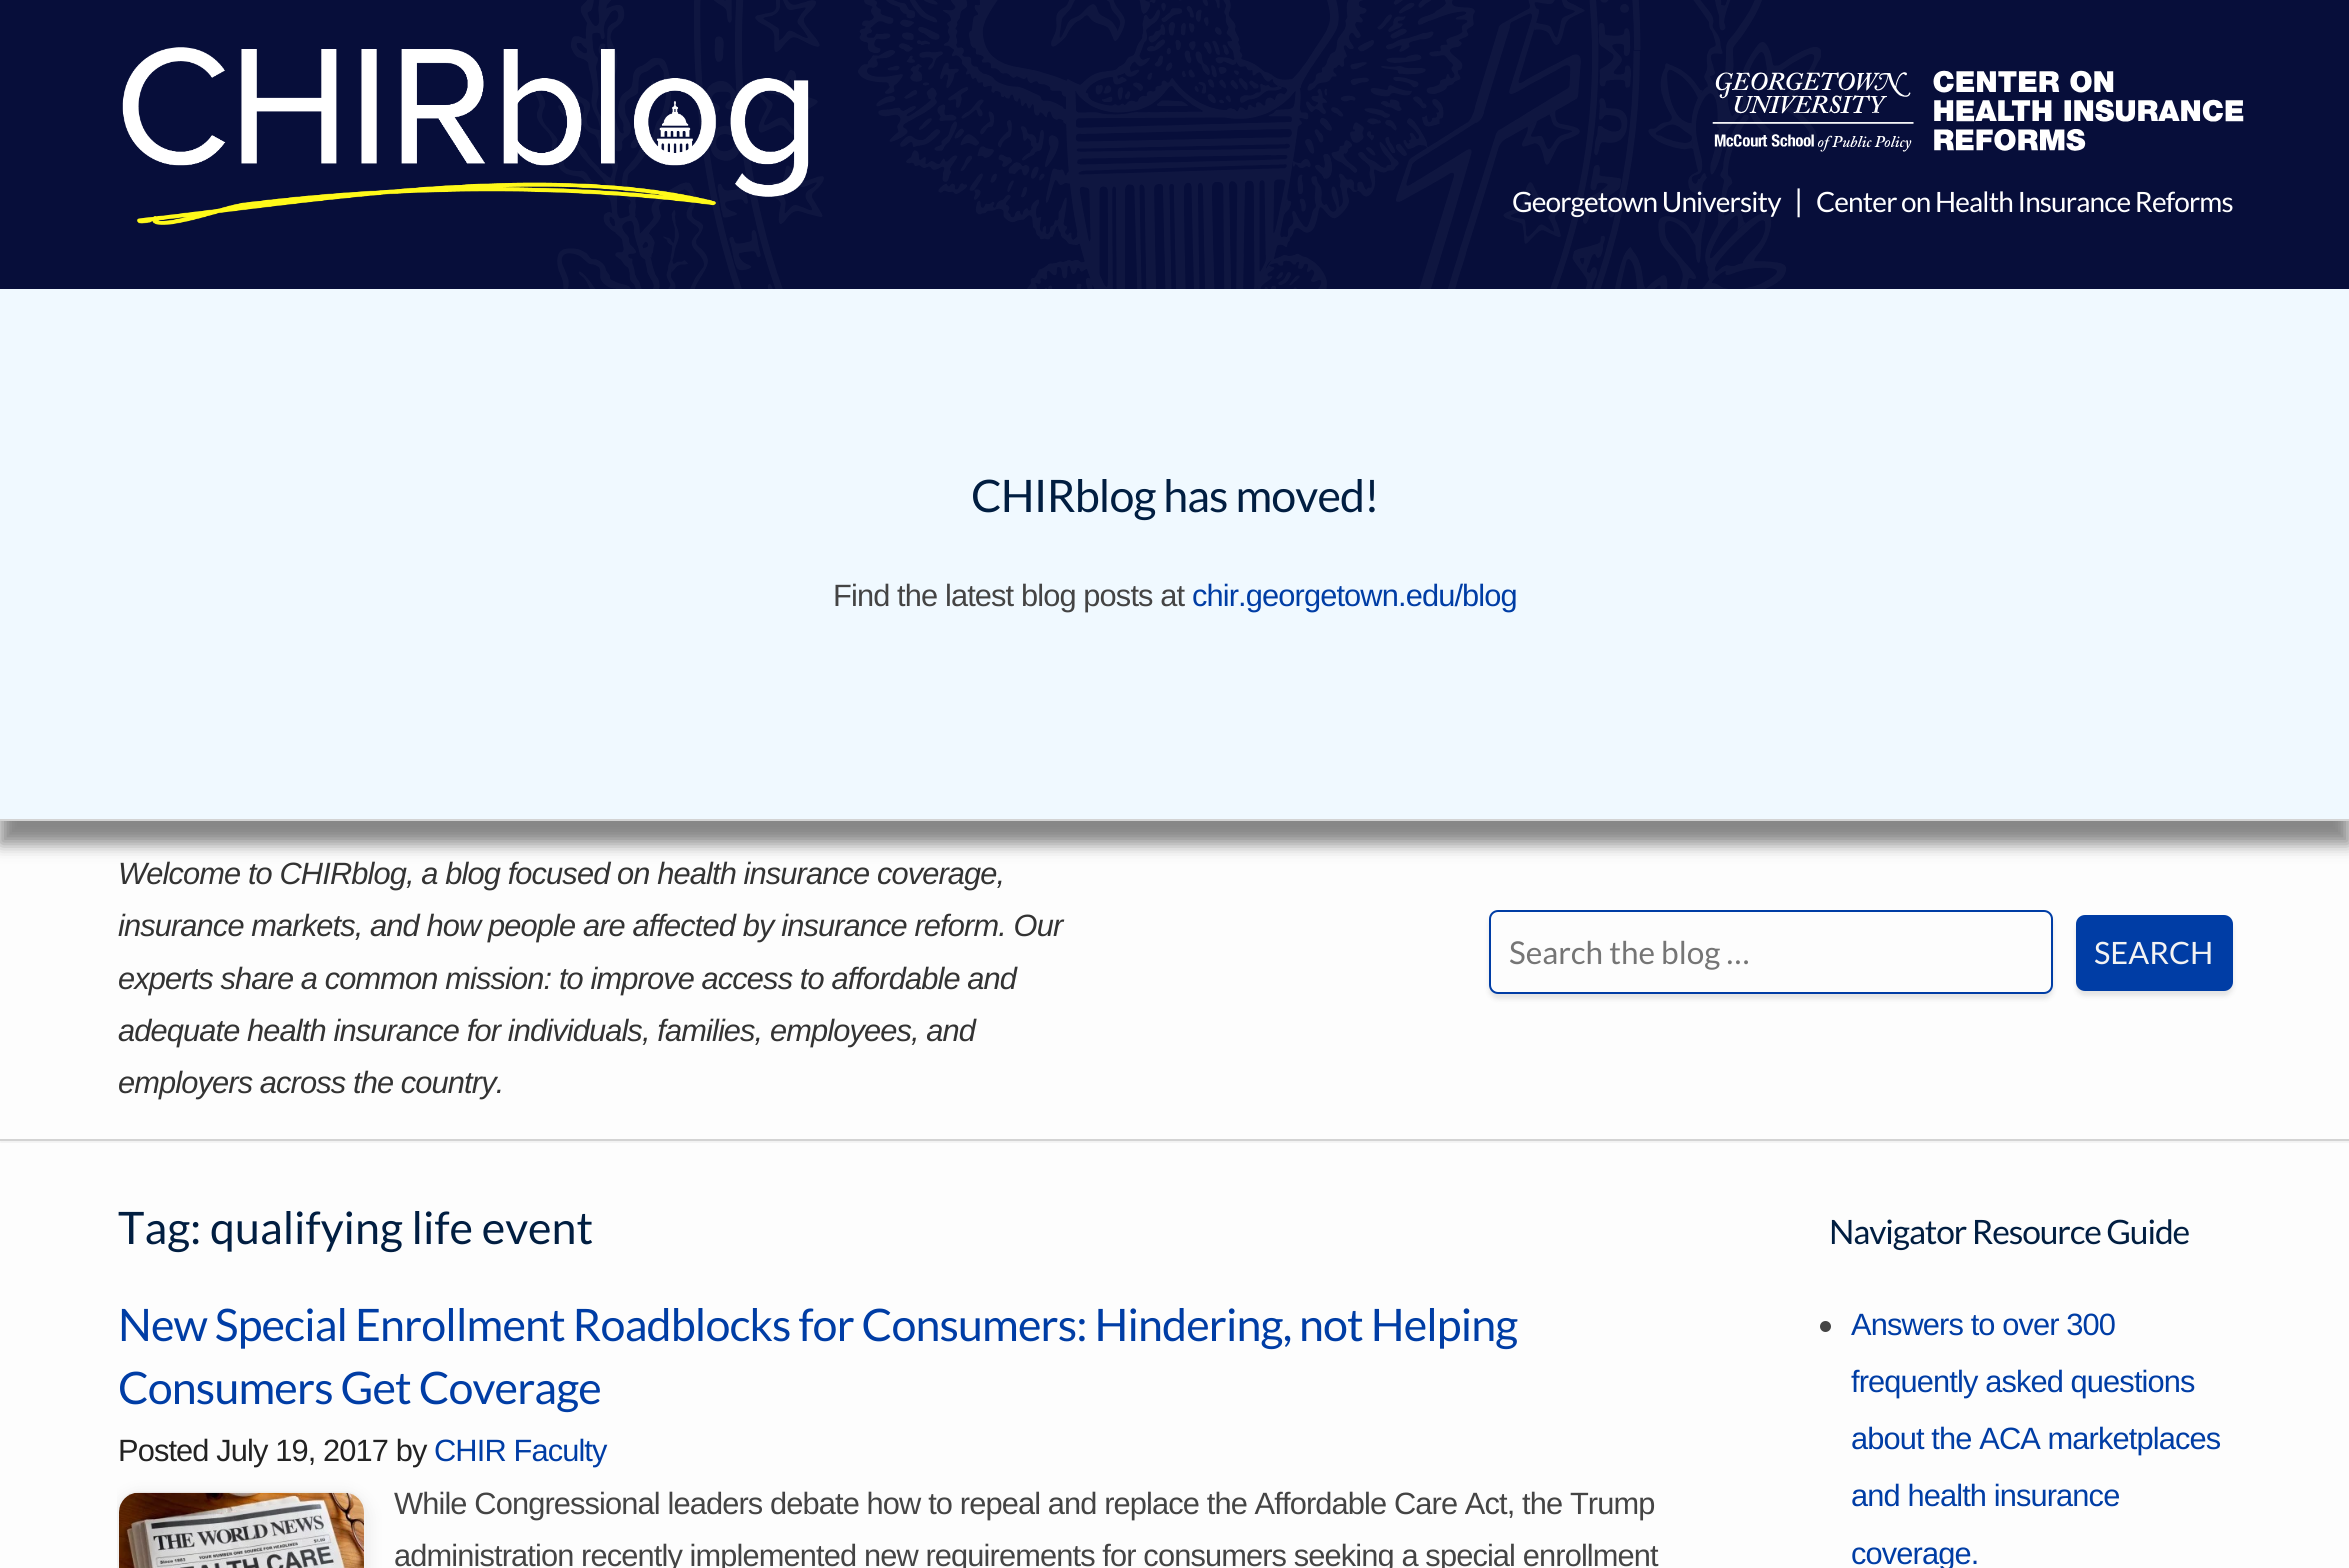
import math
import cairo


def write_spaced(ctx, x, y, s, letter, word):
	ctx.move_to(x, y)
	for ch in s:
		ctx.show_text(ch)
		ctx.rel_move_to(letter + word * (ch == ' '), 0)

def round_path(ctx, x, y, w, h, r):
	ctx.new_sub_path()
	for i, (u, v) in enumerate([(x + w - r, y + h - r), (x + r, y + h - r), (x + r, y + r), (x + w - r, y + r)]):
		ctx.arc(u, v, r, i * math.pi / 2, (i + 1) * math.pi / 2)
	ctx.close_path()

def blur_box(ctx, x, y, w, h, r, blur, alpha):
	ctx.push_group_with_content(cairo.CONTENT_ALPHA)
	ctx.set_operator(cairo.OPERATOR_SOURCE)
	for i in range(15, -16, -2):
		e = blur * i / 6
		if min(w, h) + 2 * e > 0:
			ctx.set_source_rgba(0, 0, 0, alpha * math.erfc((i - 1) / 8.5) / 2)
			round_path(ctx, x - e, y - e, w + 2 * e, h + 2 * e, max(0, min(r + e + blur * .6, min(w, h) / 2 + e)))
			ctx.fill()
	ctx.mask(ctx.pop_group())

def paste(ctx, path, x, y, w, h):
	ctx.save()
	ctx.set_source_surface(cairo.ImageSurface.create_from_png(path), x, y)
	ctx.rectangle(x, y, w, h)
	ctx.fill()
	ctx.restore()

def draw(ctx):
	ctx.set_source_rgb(0.992, 0.992, 0.992)
	ctx.paint()
	ctx.set_source_rgb(0.031, 0.055, 0.227)
	ctx.rectangle(0, 0, 2349, 289)
	ctx.fill()
	paste(ctx, 'media/1.png', 535, 0, 1286, 289)
	paste(ctx, 'media/2.png', 122, 47, 687, 178)
	paste(ctx, 'media/3.png', 1712, 70, 532, 82)
	ctx.select_font_face('Lato')
	ctx.set_font_size(28)
	ctx.set_source_rgb(1, 1, 1)
	write_spaced(ctx, 1512, 212, 'Georgetown University', -0.88, 0)
	ctx.set_font_size(30.8)
	write_spaced(ctx, 1794, 212, '|', -0.88, 0)
	ctx.set_font_size(28)
	write_spaced(ctx, 1816, 212, 'Center on Health Insurance Reforms', -0.88, 0)
	ctx.set_source_rgb(0, 0, 0)
	blur_box(ctx, 0, 312, 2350, 532, 0, 8, 0.47)
	ctx.set_source_rgb(0.941, 0.973, 1)
	ctx.rectangle(0, 289, 2349, 530)
	ctx.fill()
	ctx.save()
	ctx.rectangle(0, 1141, 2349, 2)
	ctx.clip()
	ctx.set_source_rgb(0, 0, 0)
	blur_box(ctx, 0, 823, 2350, 320, 0, 1, 0.05)
	ctx.restore()
	ctx.set_source_rgb(0.827, 0.827, 0.827)
	ctx.rectangle(0, 819, 2349, 2)
	ctx.fill()
	ctx.set_font_size(44.8)
	ctx.set_source_rgb(0.004, 0.118, 0.255)
	write_spaced(ctx, 971, 512, 'CHIRblog has moved!', -0.88, 0)
	ctx.select_font_face('Liberation Sans')
	ctx.set_font_size(30.8)
	ctx.set_source_rgb(0.267, 0.267, 0.267)
	write_spaced(ctx, 833, 606, 'Find the latest blog posts at', -0.88, 0)
	ctx.set_source_rgb(0, 0.239, 0.647)
	write_spaced(ctx, 1192, 606, 'chir.georgetown.edu/blog', -0.88, 0)
	ctx.set_source_rgb(0.827, 0.827, 0.827)
	ctx.rectangle(0, 1139, 2349, 2)
	ctx.fill()
	ctx.select_font_face('Liberation Sans', cairo.FONT_SLANT_ITALIC)
	ctx.set_source_rgb(0.2, 0.2, 0.2)
	for x, y, s in [
		(118, 884, 'Welcome to CHIRblog, a blog focused on health insurance coverage,'),
		(118, 936, 'insurance markets, and how people are affected by insurance reform. Our'),
		(118, 989, 'experts share a common mission: to improve access to affordable and'),
		(118, 1041, 'adequate health insurance for individuals, families, employees, and'),
		(118, 1093, 'employers across the country.'),
	]:
		write_spaced(ctx, x, y, s, -0.88, 0)
	ctx.set_source_rgb(0, 0, 0)
	blur_box(ctx, 1489, 915, 564, 84, 9, 2.5, 0.1)
	ctx.set_source_rgb(0.992, 0.992, 0.992)
	round_path(ctx, 1490, 911, 562, 82, 8)
	ctx.fill_preserve()
	ctx.set_source_rgb(0, 0.239, 0.647)
	ctx.stroke()
	ctx.select_font_face('Lato')
	ctx.set_font_size(31.5)
	ctx.set_source_rgb(0.459, 0.459, 0.459)
	ctx.move_to(1509, 964)
	ctx.show_text('Search the blog …')
	ctx.set_source_rgb(0, 0, 0)
	blur_box(ctx, 2076, 921, 157, 75, 9, 2.5, 0.1)
	ctx.set_source_rgb(0, 0.239, 0.647)
	round_path(ctx, 2077, 916, 155, 74, 8)
	ctx.fill_preserve()
	ctx.stroke()
	ctx.set_font_size(30.8)
	ctx.set_source_rgb(0.953, 0.953, 0.953)
	ctx.move_to(2094, 964)
	ctx.show_text('SEARCH')
	ctx.set_font_size(44.8)
	ctx.set_source_rgb(0.004, 0.118, 0.255)
	ctx.move_to(118, 1244)
	ctx.show_text('Tag: qualifying life event')
	ctx.set_source_rgb(0, 0.239, 0.647)
	write_spaced(ctx, 118, 1341, 'New Special Enrollment Roadblocks for Consumers: Hindering, not Helping', -0.88, 0)
	write_spaced(ctx, 118, 1404, 'Consumers Get Coverage', -0.88, 0)
	ctx.select_font_face('Liberation Sans')
	ctx.set_font_size(30.8)
	ctx.set_source_rgb(0.133, 0.133, 0.133)
	write_spaced(ctx, 118, 1461, 'Posted July 19, 2017 by', -0.88, 0)
	ctx.set_source_rgb(0, 0.239, 0.647)
	write_spaced(ctx, 434, 1461, 'CHIR Faculty', -0.88, 0)
	ctx.save()
	ctx.rectangle(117, 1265, 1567, 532)
	ctx.clip()
	ctx.set_source_rgb(0, 0, 0)
	blur_box(ctx, 117, 1496, 249, 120, 21, 9, 0.1)
	ctx.restore()
	round_path(ctx, 118, 1492, 247, 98, 20)
	ctx.set_source_rgb(0.949, 0.949, 0.949)
	ctx.stroke()
	paste(ctx, 'media/4.png', 119, 1492, 245, 76)
	ctx.set_source_rgb(0.267, 0.267, 0.267)
	write_spaced(ctx, 394, 1514, 'While Congressional leaders debate how to repeal and replace the Affordable Care Act, the Trump', -0.88, 0)
	write_spaced(ctx, 394, 1566, 'administration recently implemented new requirements for consumers seeking a special enrollment', -0.88, 0)
	ctx.select_font_face('Lato')
	ctx.set_font_size(33.6)
	ctx.set_source_rgb(0.004, 0.118, 0.255)
	write_spaced(ctx, 1829, 1244, 'Navigator Resource Guide', -1.1, 0)
	ctx.set_source_rgb(0.267, 0.267, 0.267)
	ctx.new_path()
	ctx.arc(1825.5, 1326.5, 5.5, 0, 2 * math.pi)
	ctx.fill()
	ctx.select_font_face('Liberation Sans')
	ctx.set_font_size(30.8)
	ctx.set_source_rgb(0, 0.239, 0.647)
	for x, y, s in [
		(1851, 1335, 'Answers to over 300'),
		(1851, 1392, 'frequently asked questions'),
		(1851, 1449, 'about the ACA marketplaces'),
		(1851, 1506, 'and health insurance'),
		(1851, 1564, 'coverage.'),
	]:
		write_spaced(ctx, x, y, s, -0.88, 0)


surface = cairo.ImageSurface(cairo.FORMAT_RGB24, 2349, 1568)
ctx = cairo.Context(surface)
options = cairo.FontOptions()
options.set_hint_metrics(cairo.HINT_METRICS_OFF)
options.set_hint_style(cairo.HINT_STYLE_NONE)
ctx.set_font_options(options)
ctx.set_miter_limit(4)
draw(ctx)
surface.write_to_png('image.png')
